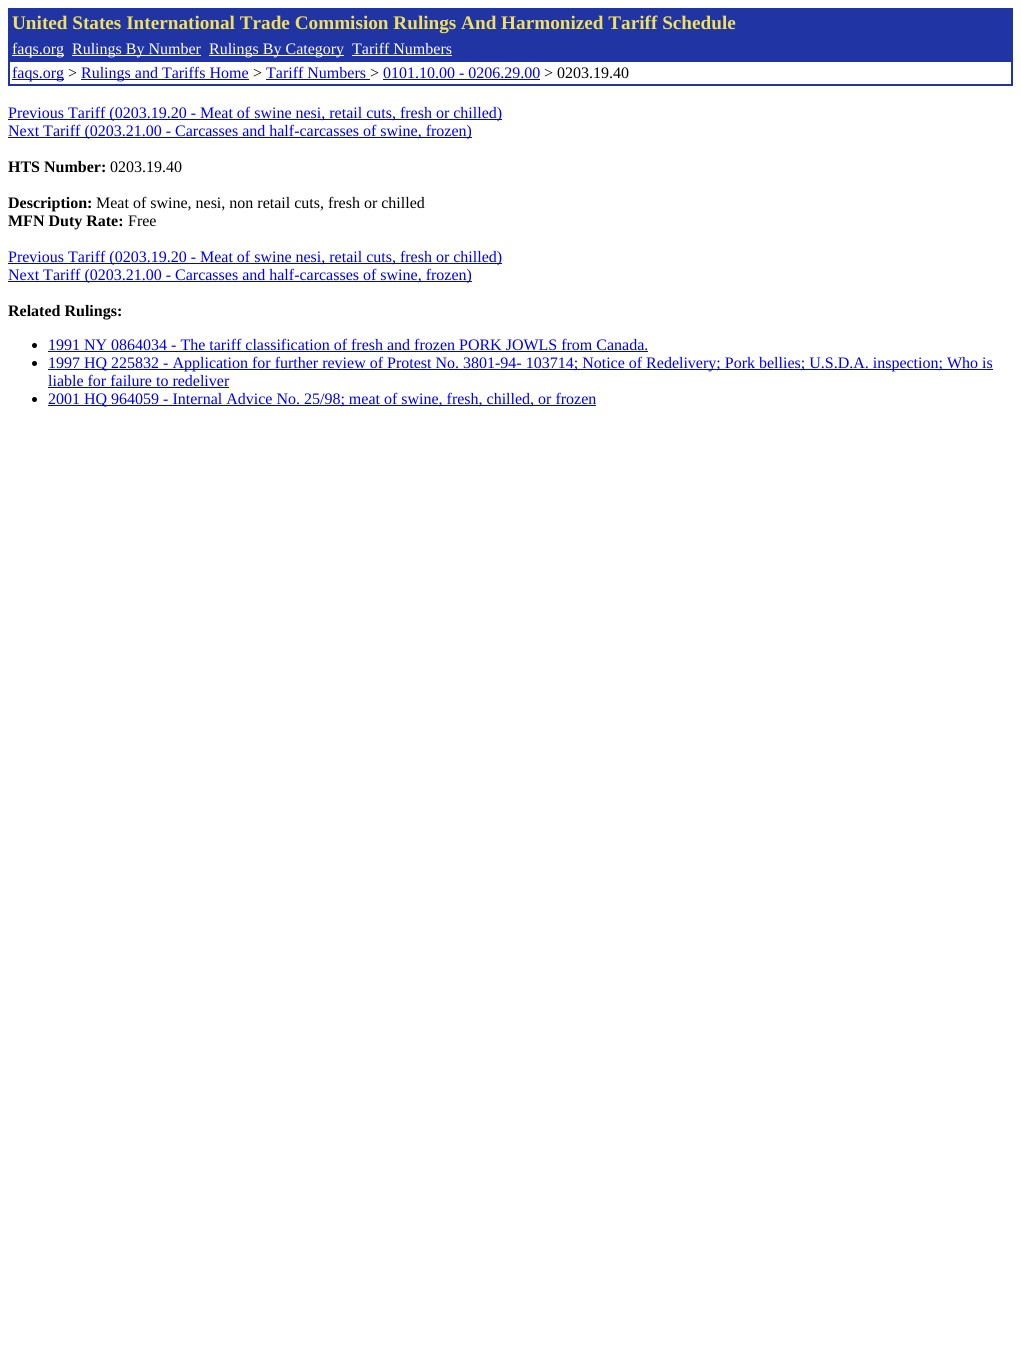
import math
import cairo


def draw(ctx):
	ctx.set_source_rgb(1, 1, 1)
	ctx.paint()
	ctx.set_source_rgb(0.129, 0.204, 0.639)
	ctx.rectangle(8, 8, 1005, 78)
	ctx.fill()
	ctx.select_font_face('Liberation Serif', cairo.FONT_SLANT_NORMAL, cairo.FONT_WEIGHT_BOLD)
	ctx.set_font_size(19.2)
	ctx.set_source_rgb(0.937, 0.882, 0.365)
	ctx.move_to(12, 29)
	ctx.show_text('United States International Trade Commision Rulings And Harmonized Tariff Schedule')
	ctx.set_source_rgb(1, 1, 1)
	ctx.rectangle(12, 55, 52, 1)
	ctx.fill()
	ctx.select_font_face('Liberation Serif')
	ctx.set_font_size(16)
	ctx.move_to(12, 54)
	ctx.show_text('faqs.org')
	ctx.rectangle(72, 55, 129, 1)
	ctx.fill()
	ctx.move_to(72, 54)
	ctx.show_text('Rulings By Number')
	ctx.rectangle(209, 55, 135, 1)
	ctx.fill()
	ctx.move_to(209, 54)
	ctx.show_text('Rulings By Category')
	ctx.move_to(352, 54)
	ctx.show_text('Tariff Numbers')
	ctx.rectangle(352, 55, 100, 1)
	ctx.rectangle(10, 62, 1001, 22)
	ctx.fill()
	ctx.set_source_rgb(0, 0, 0.933)
	ctx.rectangle(12, 79, 52, 1)
	ctx.fill()
	ctx.move_to(12, 78)
	ctx.show_text('faqs.org')
	ctx.set_source_rgb(0, 0, 0)
	ctx.move_to(68, 78)
	ctx.show_text('>')
	ctx.set_source_rgb(0, 0, 0.933)
	ctx.rectangle(81, 79, 168, 1)
	ctx.fill()
	ctx.move_to(81, 78)
	ctx.show_text('Rulings and Tariffs Home')
	ctx.set_source_rgb(0, 0, 0)
	ctx.move_to(253, 78)
	ctx.show_text('>')
	ctx.set_source_rgb(0, 0, 0.933)
	ctx.move_to(266, 78)
	ctx.show_text('Tariff Numbers')
	ctx.rectangle(266, 79, 104, 1)
	ctx.fill()
	ctx.set_source_rgb(0, 0, 0)
	ctx.move_to(370, 78)
	ctx.show_text('>')
	ctx.set_source_rgb(0, 0, 0.933)
	ctx.move_to(383, 78)
	ctx.show_text('0101.10.00 - 0206.29.00')
	ctx.rectangle(383, 79, 157, 1)
	ctx.fill()
	ctx.set_source_rgb(0, 0, 0)
	ctx.move_to(544, 78)
	ctx.show_text('> 0203.19.40')
	ctx.set_source_rgb(0, 0, 0.933)
	ctx.rectangle(8, 119, 494, 1)
	ctx.fill()
	ctx.move_to(8, 118)
	ctx.show_text('Previous Tariff (0203.19.20 - Meat of swine nesi, retail cuts, fresh or chilled)')
	ctx.rectangle(8, 137, 464, 1)
	ctx.fill()
	ctx.move_to(8, 136)
	ctx.show_text('Next Tariff (0203.21.00 - Carcasses and half-carcasses of swine, frozen)')
	ctx.select_font_face('Liberation Serif', cairo.FONT_SLANT_NORMAL, cairo.FONT_WEIGHT_BOLD)
	ctx.set_source_rgb(0, 0, 0)
	ctx.move_to(8, 172)
	ctx.show_text('HTS Number:')
	ctx.select_font_face('Liberation Serif')
	ctx.move_to(110, 172)
	ctx.show_text('0203.19.40')
	ctx.select_font_face('Liberation Serif', cairo.FONT_SLANT_NORMAL, cairo.FONT_WEIGHT_BOLD)
	ctx.move_to(8, 208)
	ctx.show_text('Description:')
	ctx.select_font_face('Liberation Serif')
	ctx.move_to(96, 208)
	ctx.show_text('Meat of swine, nesi, non retail cuts, fresh or chilled')
	ctx.select_font_face('Liberation Serif', cairo.FONT_SLANT_NORMAL, cairo.FONT_WEIGHT_BOLD)
	ctx.move_to(8, 226)
	ctx.show_text('MFN Duty Rate:')
	ctx.select_font_face('Liberation Serif')
	ctx.move_to(128, 226)
	ctx.show_text('Free')
	ctx.set_source_rgb(0, 0, 0.933)
	ctx.rectangle(8, 263, 494, 1)
	ctx.fill()
	ctx.move_to(8, 262)
	ctx.show_text('Previous Tariff (0203.19.20 - Meat of swine nesi, retail cuts, fresh or chilled)')
	ctx.rectangle(8, 281, 464, 1)
	ctx.fill()
	ctx.move_to(8, 280)
	ctx.show_text('Next Tariff (0203.21.00 - Carcasses and half-carcasses of swine, frozen)')
	ctx.select_font_face('Liberation Serif', cairo.FONT_SLANT_NORMAL, cairo.FONT_WEIGHT_BOLD)
	ctx.set_source_rgb(0, 0, 0)
	ctx.move_to(8, 316)
	ctx.show_text('Related Rulings:')
	ctx.new_path()
	ctx.arc(34.5, 345.5, 2.5, 0, 2 * math.pi)
	ctx.fill()
	ctx.select_font_face('Liberation Serif')
	ctx.set_source_rgb(0, 0, 0.933)
	ctx.move_to(48, 350)
	ctx.show_text('1991 NY 0864034 - The tariff classification of fresh and frozen PORK JOWLS from Canada.')
	ctx.rectangle(48, 351, 600, 1)
	ctx.fill()
	ctx.set_source_rgb(0, 0, 0)
	ctx.arc(34.5, 363.5, 2.5, 0, 2 * math.pi)
	ctx.fill()
	ctx.set_source_rgb(0, 0, 0.933)
	ctx.rectangle(48, 369, 945, 1)
	ctx.fill()
	ctx.move_to(48, 368)
	ctx.show_text('1997 HQ 225832 - Application for further review of Protest No. 3801-94- 103714; Notice of Redelivery; Pork bellies; U.S.D.A. inspection; Who is')
	ctx.move_to(48, 386)
	ctx.show_text('liable for failure to redeliver')
	ctx.rectangle(48, 387, 181, 1)
	ctx.fill()
	ctx.set_source_rgb(0, 0, 0)
	ctx.arc(34.5, 399.5, 2.5, 0, 2 * math.pi)
	ctx.fill()
	ctx.set_source_rgb(0, 0, 0.933)
	ctx.rectangle(48, 405, 548, 1)
	ctx.fill()
	ctx.move_to(48, 404)
	ctx.show_text('2001 HQ 964059 - Internal Advice No. 25/98; meat of swine, fresh, chilled, or frozen')


surface = cairo.ImageSurface(cairo.FORMAT_RGB24, 1021, 1368)
ctx = cairo.Context(surface)
options = cairo.FontOptions()
options.set_hint_metrics(cairo.HINT_METRICS_OFF)
options.set_hint_style(cairo.HINT_STYLE_NONE)
ctx.set_font_options(options)
ctx.set_miter_limit(4)
draw(ctx)
surface.write_to_png('image.png')
